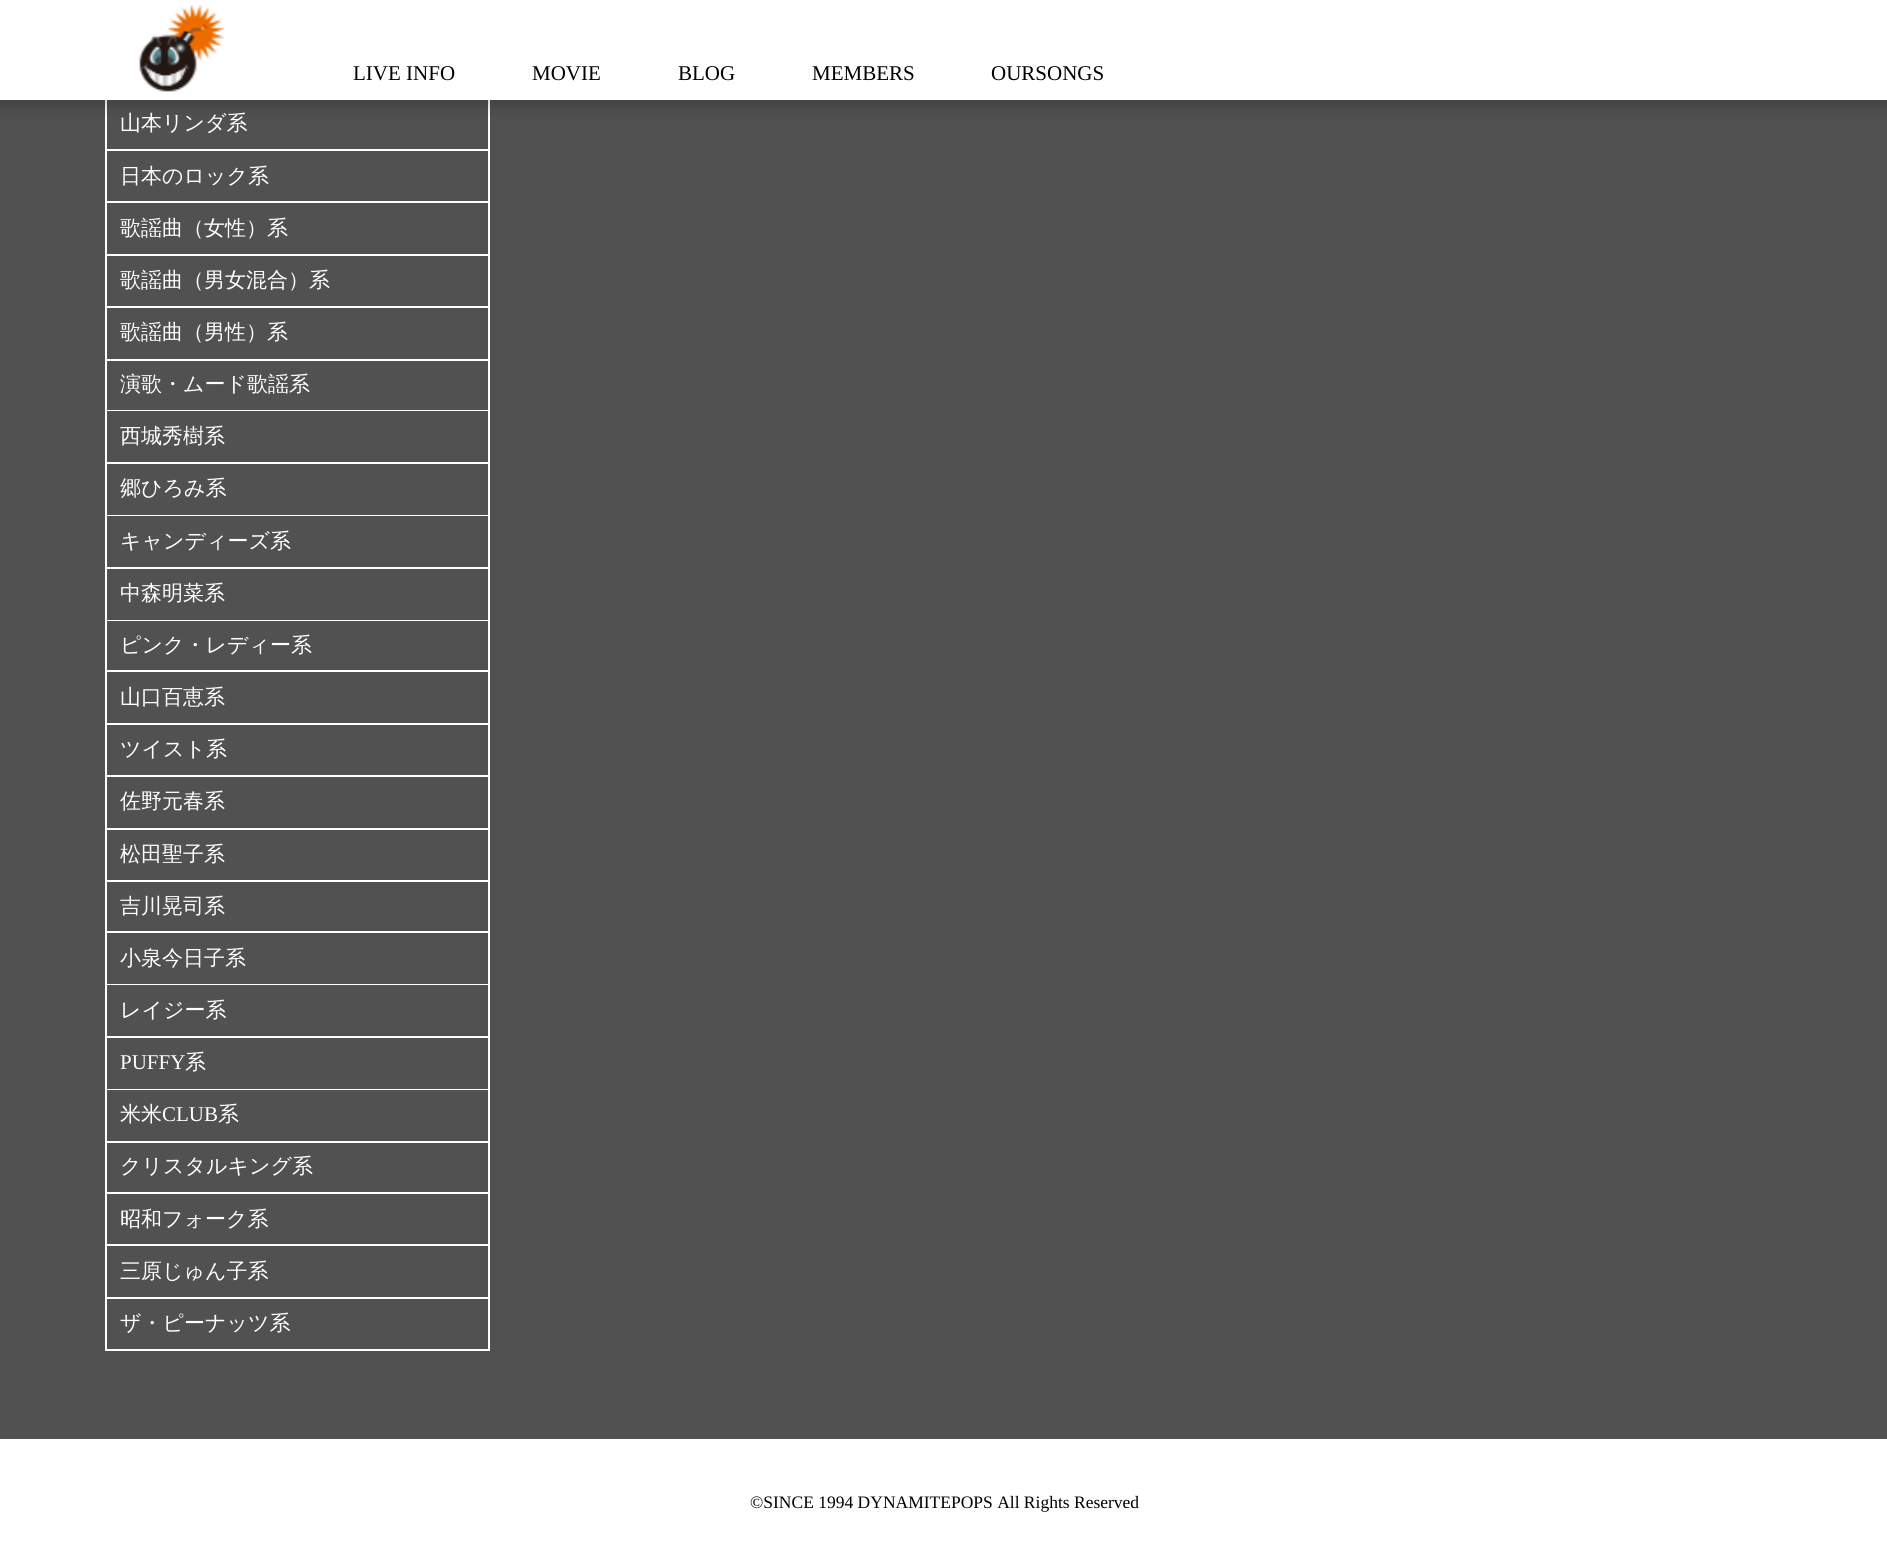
import math
import cairo


def round_path(ctx, x, y, w, h, r):
	ctx.new_sub_path()
	for i, (u, v) in enumerate([(x + w - r, y + h - r), (x + r, y + h - r), (x + r, y + r), (x + w - r, y + r)]):
		ctx.arc(u, v, r, i * math.pi / 2, (i + 1) * math.pi / 2)
	ctx.close_path()

def blur_box(ctx, x, y, w, h, r, blur, alpha):
	ctx.push_group_with_content(cairo.CONTENT_ALPHA)
	ctx.set_operator(cairo.OPERATOR_SOURCE)
	for i in range(15, -16, -2):
		e = blur * i / 6
		if min(w, h) + 2 * e > 0:
			ctx.set_source_rgba(0, 0, 0, alpha * math.erfc((i - 1) / 8.5) / 2)
			round_path(ctx, x - e, y - e, w + 2 * e, h + 2 * e, max(0, min(r + e + blur * .6, min(w, h) / 2 + e)))
			ctx.fill()
	ctx.mask(ctx.pop_group())

def paste(ctx, path, x, y, w, h):
	ctx.save()
	ctx.set_source_surface(cairo.ImageSurface.create_from_png(path), x, y)
	ctx.rectangle(x, y, w, h)
	ctx.fill()
	ctx.restore()

def draw(ctx):
	ctx.set_source_rgb(0.318, 0.318, 0.318)
	ctx.paint()
	ctx.set_source_rgb(1, 1, 1)
	ctx.rectangle(488, 100, 2, 1251)
	ctx.rectangle(105, 149, 385, 2)
	ctx.rectangle(105, 100, 2, 51)
	ctx.fill()
	ctx.set_source_rgb(0, 0, 0)
	blur_box(ctx, 0, 2, 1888, 100, 0, 10.5, 0.3)
	ctx.set_source_rgb(1, 1, 1)
	ctx.rectangle(0, 0, 1887, 100)
	ctx.fill()
	paste(ctx, 'media/1.png', 139, 4, 86, 88)
	ctx.select_font_face('Liberation Serif')
	ctx.set_font_size(21)
	ctx.set_source_rgb(0, 0, 0)
	for x, y, s in [
		(353, 80, 'LIVE INFO'),
		(532, 80, 'MOVIE'),
		(678, 80, 'BLOG'),
		(812, 80, 'MEMBERS'),
		(991, 80, 'OURSONGS'),
	]:
		ctx.move_to(x, y)
		ctx.show_text(s)
	ctx.select_font_face('WenQuanYi Zen Hei Medium')
	ctx.set_source_rgb(1, 1, 1)
	ctx.move_to(120, 130)
	ctx.show_text('山本リンダ系')
	ctx.rectangle(105, 201, 385, 2)
	ctx.fill()
	ctx.rectangle(105, 151, 2, 52)
	ctx.fill()
	ctx.move_to(120, 183)
	ctx.show_text('日本のロック系')
	ctx.rectangle(105, 254, 385, 2)
	ctx.fill()
	ctx.rectangle(105, 203, 2, 53)
	ctx.fill()
	ctx.move_to(120, 235)
	ctx.show_text('歌謡曲（女性）系')
	ctx.rectangle(105, 306, 385, 2)
	ctx.fill()
	ctx.rectangle(105, 256, 2, 52)
	ctx.fill()
	ctx.move_to(120, 287)
	ctx.show_text('歌謡曲（男女混合）系')
	ctx.rectangle(105, 359, 385, 2)
	ctx.fill()
	ctx.rectangle(105, 308, 2, 53)
	ctx.fill()
	ctx.move_to(120, 339)
	ctx.show_text('歌謡曲（男性）系')
	ctx.rectangle(105, 410, 385, 1)
	ctx.fill()
	ctx.rectangle(105, 361, 2, 50)
	ctx.fill()
	ctx.move_to(120, 391)
	ctx.show_text('演歌・ムード歌謡系')
	ctx.rectangle(105, 462, 385, 2)
	ctx.fill()
	ctx.rectangle(105, 411, 2, 53)
	ctx.fill()
	ctx.move_to(120, 443)
	ctx.show_text('西城秀樹系')
	ctx.rectangle(105, 515, 385, 1)
	ctx.fill()
	ctx.rectangle(105, 464, 2, 52)
	ctx.fill()
	ctx.move_to(120, 495)
	ctx.show_text('郷ひろみ系')
	ctx.rectangle(105, 567, 385, 2)
	ctx.fill()
	ctx.rectangle(105, 516, 2, 53)
	ctx.fill()
	ctx.move_to(120, 548)
	ctx.show_text('キャンディーズ系')
	ctx.rectangle(105, 620, 385, 1)
	ctx.fill()
	ctx.rectangle(105, 569, 2, 52)
	ctx.fill()
	ctx.move_to(120, 600)
	ctx.show_text('中森明菜系')
	ctx.rectangle(105, 670, 385, 2)
	ctx.fill()
	ctx.rectangle(105, 621, 2, 51)
	ctx.fill()
	ctx.move_to(120, 652)
	ctx.show_text('ピンク・レディー系')
	ctx.rectangle(105, 723, 385, 2)
	ctx.fill()
	ctx.rectangle(105, 672, 2, 53)
	ctx.fill()
	ctx.move_to(120, 704)
	ctx.show_text('山口百恵系')
	ctx.rectangle(105, 775, 385, 2)
	ctx.fill()
	ctx.rectangle(105, 725, 2, 52)
	ctx.fill()
	ctx.move_to(120, 756)
	ctx.show_text('ツイスト系')
	ctx.rectangle(105, 828, 385, 2)
	ctx.fill()
	ctx.rectangle(105, 777, 2, 53)
	ctx.fill()
	ctx.move_to(120, 808)
	ctx.show_text('佐野元春系')
	ctx.rectangle(105, 880, 385, 2)
	ctx.fill()
	ctx.rectangle(105, 830, 2, 52)
	ctx.fill()
	ctx.move_to(120, 861)
	ctx.show_text('松田聖子系')
	ctx.rectangle(105, 931, 385, 2)
	ctx.fill()
	ctx.rectangle(105, 882, 2, 51)
	ctx.fill()
	ctx.move_to(120, 913)
	ctx.show_text('吉川晃司系')
	ctx.rectangle(105, 984, 385, 1)
	ctx.fill()
	ctx.rectangle(105, 933, 2, 52)
	ctx.fill()
	ctx.move_to(120, 965)
	ctx.show_text('小泉今日子系')
	ctx.rectangle(105, 1036, 385, 2)
	ctx.fill()
	ctx.rectangle(105, 985, 2, 53)
	ctx.fill()
	ctx.move_to(120, 1017)
	ctx.show_text('レイジー系')
	ctx.rectangle(105, 1089, 385, 1)
	ctx.fill()
	ctx.rectangle(105, 1038, 2, 52)
	ctx.fill()
	ctx.select_font_face('Liberation Serif')
	ctx.move_to(120, 1069)
	ctx.show_text('PUFFY')
	ctx.select_font_face('WenQuanYi Zen Hei Medium')
	ctx.move_to(185, 1069)
	ctx.show_text('系')
	ctx.rectangle(105, 1141, 385, 2)
	ctx.fill()
	ctx.rectangle(105, 1090, 2, 53)
	ctx.fill()
	ctx.move_to(120, 1121)
	ctx.show_text('米米')
	ctx.select_font_face('Liberation Serif')
	ctx.move_to(162, 1121)
	ctx.show_text('CLUB')
	ctx.select_font_face('WenQuanYi Zen Hei Medium')
	ctx.move_to(218, 1121)
	ctx.show_text('系')
	ctx.rectangle(105, 1192, 385, 2)
	ctx.fill()
	ctx.rectangle(105, 1143, 2, 51)
	ctx.fill()
	ctx.move_to(120, 1173)
	ctx.show_text('クリスタルキング系')
	ctx.rectangle(105, 1244, 385, 2)
	ctx.fill()
	ctx.rectangle(105, 1194, 2, 52)
	ctx.fill()
	ctx.move_to(120, 1226)
	ctx.show_text('昭和フォーク系')
	ctx.rectangle(105, 1297, 385, 2)
	ctx.fill()
	ctx.rectangle(105, 1246, 2, 53)
	ctx.fill()
	ctx.move_to(120, 1278)
	ctx.show_text('三原じゅん子系')
	ctx.rectangle(105, 1349, 385, 2)
	ctx.fill()
	ctx.rectangle(105, 1299, 2, 52)
	ctx.fill()
	ctx.move_to(120, 1330)
	ctx.show_text('ザ・ピーナッツ系')
	ctx.rectangle(0, 1439, 1887, 129)
	ctx.fill()
	ctx.select_font_face('Liberation Serif')
	ctx.set_font_size(17.5)
	ctx.set_source_rgb(0, 0, 0)
	ctx.move_to(750, 1508)
	ctx.show_text('©SINCE 1994 DYNAMITEPOPS All Rights Reserved')


surface = cairo.ImageSurface(cairo.FORMAT_RGB24, 1887, 1568)
ctx = cairo.Context(surface)
options = cairo.FontOptions()
options.set_hint_metrics(cairo.HINT_METRICS_OFF)
options.set_hint_style(cairo.HINT_STYLE_NONE)
ctx.set_font_options(options)
ctx.set_miter_limit(4)
draw(ctx)
surface.write_to_png('image.png')
